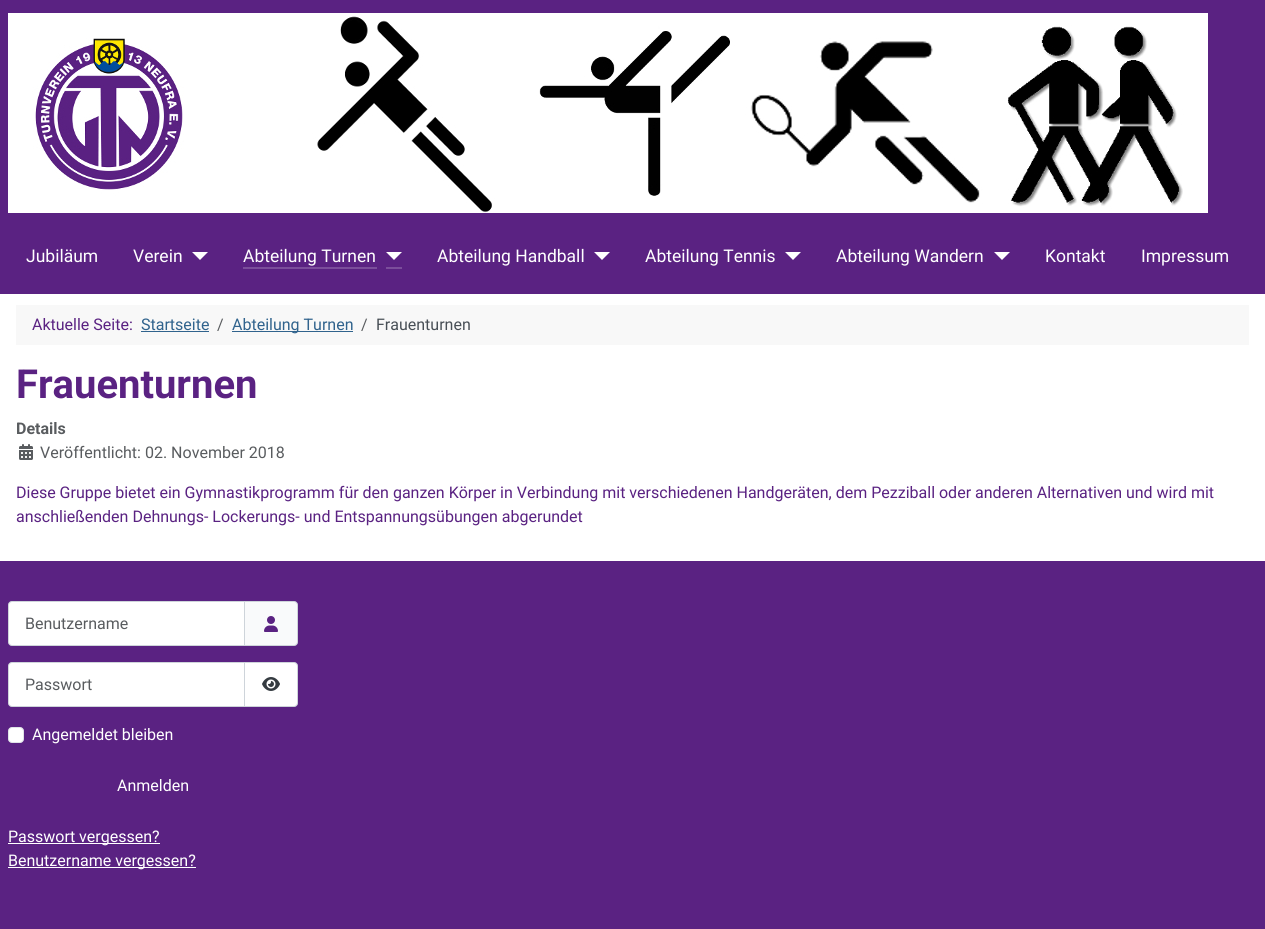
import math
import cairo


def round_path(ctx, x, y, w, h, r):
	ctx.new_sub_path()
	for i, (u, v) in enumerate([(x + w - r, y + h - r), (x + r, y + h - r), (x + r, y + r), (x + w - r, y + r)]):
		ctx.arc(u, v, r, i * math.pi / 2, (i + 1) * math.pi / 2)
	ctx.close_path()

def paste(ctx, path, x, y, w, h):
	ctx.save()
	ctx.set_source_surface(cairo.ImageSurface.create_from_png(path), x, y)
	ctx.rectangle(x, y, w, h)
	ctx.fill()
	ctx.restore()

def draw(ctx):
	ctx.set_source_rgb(1, 1, 1)
	ctx.paint()
	ctx.set_source_rgb(0.353, 0.133, 0.51)
	ctx.rectangle(0, 0, 1265, 294)
	ctx.fill()
	paste(ctx, 'media/1.png', 8, 13, 1200, 200)
	ctx.select_font_face('Roboto')
	ctx.set_font_size(17.5)
	ctx.set_source_rgb(1, 1, 1)
	ctx.move_to(26, 262)
	ctx.show_text('Jubiläum')
	ctx.move_to(133, 262)
	ctx.show_text('Verein')
	ctx.new_path()
	ctx.move_to(192, 252)
	ctx.line_to(208, 252)
	ctx.line_to(200, 260)
	ctx.close_path()
	ctx.fill()
	ctx.move_to(243, 262)
	ctx.show_text('Abteilung Turnen')
	ctx.set_source_rgb(0.482, 0.306, 0.608)
	ctx.rectangle(243, 267, 134, 2)
	ctx.fill()
	ctx.set_source_rgb(1, 1, 1)
	ctx.new_path()
	ctx.move_to(386, 252)
	ctx.line_to(402, 252)
	ctx.line_to(394, 260)
	ctx.close_path()
	ctx.fill()
	ctx.set_source_rgb(0.482, 0.306, 0.608)
	ctx.rectangle(386, 267, 16, 2)
	ctx.fill()
	ctx.set_source_rgb(1, 1, 1)
	ctx.move_to(437, 262)
	ctx.show_text('Abteilung Handball')
	ctx.new_path()
	ctx.move_to(594, 252)
	ctx.line_to(610, 252)
	ctx.line_to(602, 260)
	ctx.close_path()
	ctx.fill()
	ctx.move_to(645, 262)
	ctx.show_text('Abteilung Tennis')
	ctx.new_path()
	ctx.move_to(785, 252)
	ctx.line_to(801, 252)
	ctx.line_to(793, 260)
	ctx.close_path()
	ctx.fill()
	ctx.move_to(836, 262)
	ctx.show_text('Abteilung Wandern')
	ctx.new_path()
	ctx.move_to(994, 252)
	ctx.line_to(1010, 252)
	ctx.line_to(1002, 260)
	ctx.close_path()
	ctx.fill()
	ctx.move_to(1045, 262)
	ctx.show_text('Kontakt')
	ctx.move_to(1141, 262)
	ctx.show_text('Impressum')
	ctx.set_source_rgb(0.969, 0.969, 0.969)
	ctx.rectangle(16, 305, 1233, 40)
	ctx.fill()
	ctx.set_font_size(16)
	ctx.set_source_rgb(0.353, 0.133, 0.51)
	ctx.move_to(32, 330)
	ctx.show_text('Aktuelle Seite:')
	ctx.set_source_rgb(0.188, 0.388, 0.553)
	ctx.move_to(141, 330)
	ctx.show_text('Startseite')
	ctx.rectangle(141, 331, 68, 1)
	ctx.fill()
	ctx.set_source_rgb(0.349, 0.361, 0.373)
	ctx.move_to(217, 330)
	ctx.show_text('/')
	ctx.set_source_rgb(0.188, 0.388, 0.553)
	ctx.rectangle(232, 331, 121, 1)
	ctx.fill()
	ctx.move_to(232, 330)
	ctx.show_text('Abteilung Turnen')
	ctx.set_source_rgb(0.349, 0.361, 0.373)
	ctx.move_to(361, 330)
	ctx.show_text('/')
	ctx.set_source_rgb(0.282, 0.31, 0.337)
	ctx.move_to(376, 330)
	ctx.show_text('Frauenturnen')
	ctx.select_font_face('Roboto', cairo.FONT_SLANT_NORMAL, cairo.FONT_WEIGHT_BOLD)
	ctx.set_font_size(40)
	ctx.set_source_rgb(0.353, 0.133, 0.51)
	ctx.move_to(16, 398)
	ctx.show_text('Frauenturnen')
	ctx.set_font_size(16)
	ctx.set_source_rgb(0.349, 0.361, 0.373)
	ctx.move_to(16, 434)
	ctx.show_text('Details')
	paste(ctx, 'media/2.png', 19, 444, 14, 16)
	ctx.select_font_face('Roboto')
	ctx.move_to(40, 458)
	ctx.show_text('Veröffentlicht: 02. November 2018')
	ctx.set_source_rgb(0.353, 0.133, 0.51)
	ctx.move_to(16, 498)
	ctx.show_text('Diese Gruppe bietet ein Gymnastikprogramm für den ganzen Körper in Verbindung mit verschiedenen Handgeräten, dem Pezziball oder anderen Alternativen und wird mit')
	ctx.move_to(16, 522)
	ctx.show_text('anschließenden Dehnungs- Lockerungs- und Entspannungsübungen abgerundet')
	ctx.rectangle(0, 561, 1265, 368)
	ctx.fill()
	ctx.set_source_rgb(0.976, 0.98, 0.984)
	ctx.new_path()
	ctx.move_to(244.5, 601.5)
	ctx.line_to(294, 601.5)
	ctx.curve_to(296, 601.5, 297.5, 603, 297.5, 605)
	ctx.line_to(297.5, 642)
	ctx.curve_to(297.5, 644, 296, 645.5, 294, 645.5)
	ctx.line_to(244.5, 645.5)
	ctx.close_path()
	ctx.fill_preserve()
	ctx.set_source_rgb(0.808, 0.831, 0.855)
	ctx.set_line_width(1)
	ctx.stroke()
	ctx.set_source_rgb(1, 1, 1)
	ctx.new_path()
	ctx.move_to(12, 601.5)
	ctx.line_to(244.5, 601.5)
	ctx.line_to(244.5, 645.5)
	ctx.line_to(12, 645.5)
	ctx.curve_to(10, 645.5, 8.5, 644, 8.5, 642)
	ctx.line_to(8.5, 605)
	ctx.curve_to(8.5, 603, 10, 601.5, 12, 601.5)
	ctx.close_path()
	ctx.fill_preserve()
	ctx.set_source_rgb(0.808, 0.831, 0.855)
	ctx.stroke()
	ctx.set_source_rgb(0.349, 0.361, 0.373)
	ctx.move_to(25, 629)
	ctx.show_text('Benutzername')
	paste(ctx, 'media/3.png', 264, 616, 14, 16)
	ctx.set_source_rgb(1, 1, 1)
	ctx.new_path()
	ctx.move_to(12, 662.5)
	ctx.line_to(244.5, 662.5)
	ctx.line_to(244.5, 706.5)
	ctx.line_to(12, 706.5)
	ctx.curve_to(10, 706.5, 8.5, 705, 8.5, 703)
	ctx.line_to(8.5, 666)
	ctx.curve_to(8.5, 664, 10, 662.5, 12, 662.5)
	ctx.close_path()
	ctx.fill_preserve()
	ctx.set_source_rgb(0.808, 0.831, 0.855)
	ctx.stroke()
	ctx.set_source_rgb(0.349, 0.361, 0.373)
	ctx.move_to(25, 690)
	ctx.show_text('Passwort')
	ctx.set_source_rgb(1, 1, 1)
	ctx.new_path()
	ctx.move_to(244.5, 662.5)
	ctx.line_to(294, 662.5)
	ctx.curve_to(296, 662.5, 297.5, 664, 297.5, 666)
	ctx.line_to(297.5, 703)
	ctx.curve_to(297.5, 705, 296, 706.5, 294, 706.5)
	ctx.line_to(244.5, 706.5)
	ctx.close_path()
	ctx.fill_preserve()
	ctx.set_source_rgb(0.808, 0.831, 0.855)
	ctx.stroke()
	paste(ctx, 'media/4.png', 262, 677, 18, 14)
	ctx.set_source_rgb(1, 1, 1)
	round_path(ctx, 8.5, 727.5, 15, 15, 3.5)
	ctx.fill_preserve()
	ctx.set_source_rgb(0.875, 0.89, 0.906)
	ctx.stroke()
	ctx.set_source_rgb(1, 1, 1)
	ctx.move_to(32, 740)
	ctx.show_text('Angemeldet bleiben')
	ctx.move_to(117, 791)
	ctx.show_text('Anmelden')
	ctx.rectangle(8, 843, 152, 1)
	ctx.fill()
	ctx.move_to(8, 842)
	ctx.show_text('Passwort vergessen?')
	ctx.rectangle(8, 867, 188, 1)
	ctx.fill()
	ctx.move_to(8, 866)
	ctx.show_text('Benutzername vergessen?')


surface = cairo.ImageSurface(cairo.FORMAT_RGB24, 1265, 929)
ctx = cairo.Context(surface)
options = cairo.FontOptions()
options.set_hint_metrics(cairo.HINT_METRICS_OFF)
options.set_hint_style(cairo.HINT_STYLE_NONE)
ctx.set_font_options(options)
ctx.set_miter_limit(4)
draw(ctx)
surface.write_to_png('image.png')
